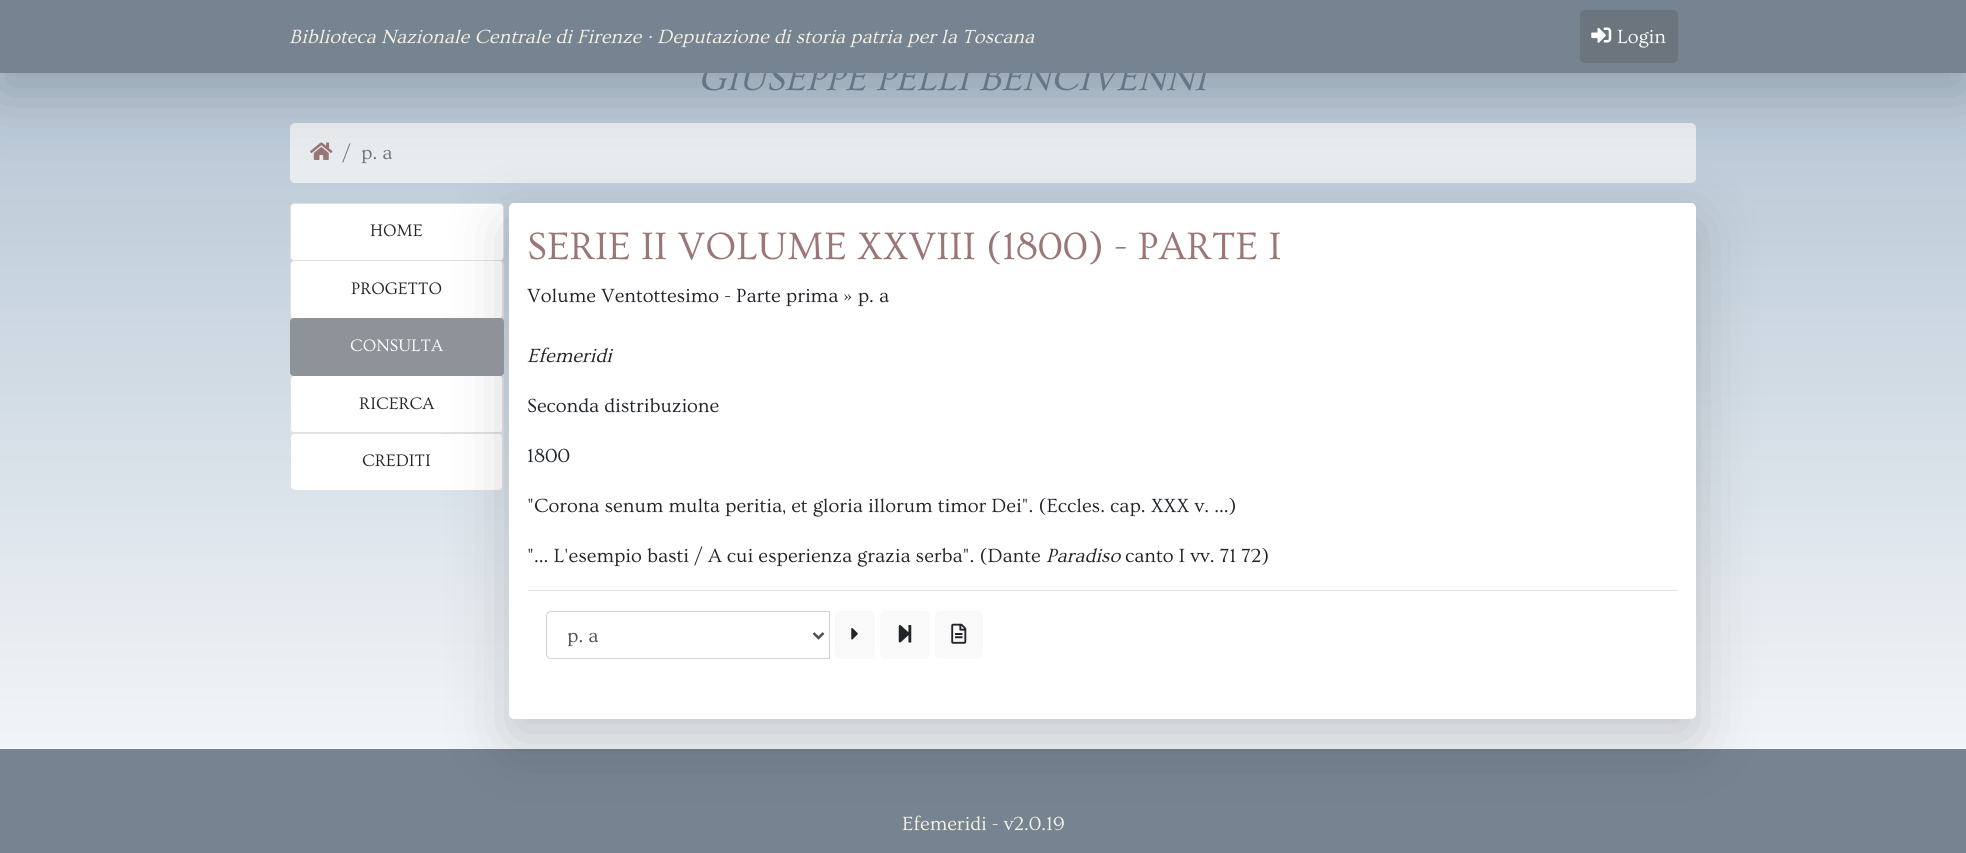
import math
import cairo


def round_path(ctx, x, y, w, h, r):
	ctx.new_sub_path()
	for i, (u, v) in enumerate([(x + w - r, y + h - r), (x + r, y + h - r), (x + r, y + r), (x + w - r, y + r)]):
		ctx.arc(u, v, r, i * math.pi / 2, (i + 1) * math.pi / 2)
	ctx.close_path()

def blur_box(ctx, x, y, w, h, r, blur, alpha):
	ctx.push_group_with_content(cairo.CONTENT_ALPHA)
	ctx.set_operator(cairo.OPERATOR_SOURCE)
	for i in range(15, -16, -2):
		e = blur * i / 6
		if min(w, h) + 2 * e > 0:
			ctx.set_source_rgba(0, 0, 0, alpha * math.erfc((i - 1) / 8.5) / 2)
			round_path(ctx, x - e, y - e, w + 2 * e, h + 2 * e, max(0, min(r + e + blur * .6, min(w, h) / 2 + e)))
			ctx.fill()
	ctx.mask(ctx.pop_group())

def paste(ctx, path, x, y, w, h):
	ctx.save()
	ctx.set_source_surface(cairo.ImageSurface.create_from_png(path), x, y)
	ctx.rectangle(x, y, w, h)
	ctx.fill()
	ctx.restore()

def draw(ctx):
	ctx.set_source_rgb(1, 1, 1)
	ctx.paint()
	gradient = cairo.LinearGradient(983, -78, 983, 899)
	gradient.add_color_stop_rgba(0, 0.663, 0.737, 0.804, 1)
	gradient.add_color_stop_rgba(1, 1, 1, 1, 1)
	ctx.set_source(gradient)
	ctx.rectangle(0, 73, 1966, 676)
	ctx.fill()
	ctx.set_source_rgb(0.914, 0.925, 0.937)
	round_path(ctx, 290, 123, 1406, 60, 5)
	ctx.fill()
	paste(ctx, 'media/2.png', 310, 142, 23, 18)
	ctx.set_source_rgb(0, 0, 0)
	blur_box(ctx, 0, 20, 1966, 73, 0, 30, 0.18)
	ctx.select_font_face('Ovo', cairo.FONT_SLANT_ITALIC)
	ctx.set_font_size(37.5)
	ctx.set_source_rgb(0.392, 0.463, 0.533)
	ctx.move_to(698, 90)
	ctx.show_text('GIUSEPPE PELLI BENCIVENNI')
	ctx.set_source_rgb(0.463, 0.514, 0.565)
	ctx.rectangle(0, 0, 1966, 73)
	ctx.fill()
	ctx.set_font_size(20)
	ctx.set_source_rgb(0.957, 0.941, 0.886)
	ctx.move_to(289, 43)
	ctx.show_text('Biblioteca Nazionale Centrale di Firenze · Deputazione di storia patria per la Toscana')
	ctx.set_source_rgb(0.424, 0.459, 0.49)
	round_path(ctx, 1580.5, 10.5, 97, 52, 4.5)
	ctx.fill_preserve()
	ctx.set_line_width(1)
	ctx.stroke()
	paste(ctx, 'media/1.png', 1591, 27, 21, 16)
	ctx.select_font_face('Ovo')
	ctx.set_source_rgb(1, 1, 1)
	ctx.move_to(1617, 43)
	ctx.show_text('Login')
	ctx.set_source_rgb(0.424, 0.459, 0.49)
	ctx.move_to(342, 159)
	ctx.show_text('/')
	ctx.move_to(361, 159)
	ctx.show_text('p. a')
	ctx.set_source_rgb(1, 1, 1)
	ctx.new_path()
	ctx.move_to(295, 203)
	ctx.line_to(499, 203)
	ctx.curve_to(502, 203, 504, 205, 504, 208)
	ctx.line_to(504, 257)
	ctx.curve_to(504, 259, 502, 261, 500, 261)
	ctx.line_to(294, 261)
	ctx.curve_to(292, 261, 290, 259, 290, 257)
	ctx.line_to(290, 208)
	ctx.curve_to(290, 205, 292, 203, 295, 203)
	ctx.close_path()
	ctx.fill()
	ctx.new_path()
	ctx.move_to(295, 203.5)
	ctx.line_to(499, 203.5)
	ctx.curve_to(501.5, 203.5, 503.5, 205.5, 503.5, 208)
	ctx.line_to(503.5, 257)
	ctx.curve_to(503.5, 259, 502, 260.5, 500, 260.5)
	ctx.line_to(294, 260.5)
	ctx.curve_to(292, 260.5, 290.5, 259, 290.5, 257)
	ctx.line_to(290.5, 208)
	ctx.curve_to(290.5, 205.5, 292.5, 203.5, 295, 203.5)
	ctx.close_path()
	ctx.set_source_rgba(0, 0, 0, 0.12)
	ctx.stroke()
	ctx.set_font_size(17.5)
	ctx.set_source_rgb(0.129, 0.145, 0.161)
	ctx.move_to(370, 236)
	ctx.show_text('HOME')
	ctx.set_source_rgb(1, 1, 1)
	round_path(ctx, 290, 261, 214, 58, 4)
	ctx.fill()
	ctx.set_source_rgba(0, 0, 0, 0.12)
	ctx.set_fill_rule(cairo.FILL_RULE_EVEN_ODD)
	ctx.new_path()
	ctx.move_to(294, 261)
	ctx.line_to(500, 261)
	ctx.curve_to(502, 261, 504, 263, 504, 265)
	ctx.line_to(504, 315)
	ctx.curve_to(504, 317, 502, 319, 500, 319)
	ctx.line_to(294, 319)
	ctx.curve_to(292, 319, 290, 317, 290, 315)
	ctx.line_to(290, 265)
	ctx.curve_to(290, 263, 292, 261, 294, 261)
	ctx.close_path()
	ctx.move_to(294, 261)
	ctx.line_to(500, 261)
	ctx.curve_to(501, 261, 502, 263, 502, 265)
	ctx.line_to(502, 315)
	ctx.curve_to(502, 316, 501, 318, 500, 318)
	ctx.line_to(294, 318)
	ctx.curve_to(292, 318, 291, 316, 291, 315)
	ctx.line_to(291, 265)
	ctx.curve_to(291, 263, 292, 261, 294, 261)
	ctx.close_path()
	ctx.fill()
	ctx.set_source_rgb(0.129, 0.145, 0.161)
	ctx.move_to(351, 294)
	ctx.show_text('PROGETTO')
	ctx.set_source_rgb(1, 1, 1)
	round_path(ctx, 290, 376, 214, 58, 4)
	ctx.fill()
	ctx.set_source_rgba(0, 0, 0, 0.12)
	ctx.new_path()
	ctx.move_to(294, 376)
	ctx.line_to(500, 376)
	ctx.curve_to(502, 376, 504, 378, 504, 380)
	ctx.line_to(504, 430)
	ctx.curve_to(504, 432, 502, 434, 500, 434)
	ctx.line_to(294, 434)
	ctx.curve_to(292, 434, 290, 432, 290, 430)
	ctx.line_to(290, 380)
	ctx.curve_to(290, 378, 292, 376, 294, 376)
	ctx.close_path()
	ctx.move_to(294, 376)
	ctx.line_to(500, 376)
	ctx.curve_to(501, 376, 502, 378, 502, 380)
	ctx.line_to(502, 430)
	ctx.curve_to(502, 431, 501, 432, 500, 432)
	ctx.line_to(294, 432)
	ctx.curve_to(292, 432, 291, 431, 291, 430)
	ctx.line_to(291, 380)
	ctx.curve_to(291, 378, 292, 376, 294, 376)
	ctx.close_path()
	ctx.fill()
	ctx.set_source_rgb(1, 1, 1)
	ctx.new_path()
	ctx.move_to(294, 434)
	ctx.line_to(500, 434)
	ctx.curve_to(502, 434, 504, 436, 504, 438)
	ctx.line_to(504, 486)
	ctx.curve_to(504, 489, 502, 491, 499, 491)
	ctx.line_to(295, 491)
	ctx.curve_to(292, 491, 290, 489, 290, 486)
	ctx.line_to(290, 438)
	ctx.curve_to(290, 436, 292, 434, 294, 434)
	ctx.close_path()
	ctx.fill()
	ctx.set_source_rgba(0, 0, 0, 0.12)
	ctx.new_path()
	ctx.move_to(294, 434)
	ctx.line_to(500, 434)
	ctx.curve_to(502, 434, 504, 436, 504, 438)
	ctx.line_to(504, 486)
	ctx.curve_to(504, 489, 502, 491, 499, 491)
	ctx.line_to(295, 491)
	ctx.curve_to(292, 491, 290, 489, 290, 486)
	ctx.line_to(290, 438)
	ctx.curve_to(290, 436, 292, 434, 294, 434)
	ctx.close_path()
	ctx.move_to(294, 434)
	ctx.line_to(500, 434)
	ctx.curve_to(501, 434, 502, 436, 502, 438)
	ctx.line_to(502, 486)
	ctx.curve_to(502, 488, 501, 490, 499, 490)
	ctx.line_to(295, 490)
	ctx.curve_to(293, 490, 291, 488, 291, 486)
	ctx.line_to(291, 438)
	ctx.curve_to(291, 436, 292, 434, 294, 434)
	ctx.close_path()
	ctx.fill()
	ctx.set_source_rgb(0.463, 0.514, 0.565)
	ctx.rectangle(0, 749, 1966, 104)
	ctx.fill()
	ctx.set_source_rgb(0, 0, 0)
	blur_box(ctx, 509, 223, 1187, 516, 5, 30, 0.18)
	ctx.set_source_rgb(0.553, 0.576, 0.6)
	round_path(ctx, 290.5, 318.5, 213, 57, 3.5)
	ctx.fill_preserve()
	ctx.stroke()
	ctx.set_source_rgb(1, 1, 1)
	ctx.move_to(350, 351)
	ctx.show_text('CONSULTA')
	ctx.set_source_rgb(0.129, 0.145, 0.161)
	ctx.move_to(359, 409)
	ctx.show_text('RICERCA')
	ctx.move_to(362, 466)
	ctx.show_text('CREDITI')
	ctx.set_source_rgb(1, 1, 1)
	round_path(ctx, 509, 203, 1187, 516, 5)
	ctx.fill()
	ctx.set_font_size(40)
	ctx.set_source_rgb(0.604, 0.463, 0.463)
	ctx.move_to(527, 259)
	ctx.show_text('SERIE II VOLUME XXVIII (1800) - PARTE I')
	ctx.set_font_size(20)
	ctx.set_source_rgb(0.129, 0.145, 0.161)
	ctx.move_to(527, 302)
	ctx.show_text('Volume Ventottesimo - Parte prima » p. a')
	ctx.select_font_face('Ovo', cairo.FONT_SLANT_ITALIC)
	ctx.move_to(527, 362)
	ctx.show_text('Efemeridi')
	ctx.select_font_face('Ovo')
	for x, y, s in [
		(527, 412, 'Seconda distribuzione'),
		(527, 462, '1800'),
		(527, 512, '"Corona senum multa peritia, et gloria illorum timor Dei". (Eccles. cap. XXX v. ...)'),
		(527, 562, '"... L\'esempio basti / A cui esperienza grazia serba". (Dante'),
	]:
		ctx.move_to(x, y)
		ctx.show_text(s)
	ctx.select_font_face('Ovo', cairo.FONT_SLANT_ITALIC)
	ctx.move_to(1046, 562)
	ctx.show_text('Paradiso')
	ctx.select_font_face('Ovo')
	ctx.move_to(1125, 562)
	ctx.show_text('canto I vv. 71 72)')
	ctx.set_source_rgb(0.902, 0.902, 0.902)
	ctx.rectangle(528, 590, 1150, 1)
	ctx.fill()
	ctx.new_path()
	ctx.move_to(551, 611.5)
	ctx.line_to(829.5, 611.5)
	ctx.line_to(829.5, 658.5)
	ctx.line_to(551, 658.5)
	ctx.curve_to(548.5, 658.5, 546.5, 656.5, 546.5, 654)
	ctx.line_to(546.5, 616)
	ctx.curve_to(546.5, 613.5, 548.5, 611.5, 551, 611.5)
	ctx.close_path()
	ctx.set_source_rgb(0.808, 0.831, 0.855)
	ctx.stroke()
	ctx.new_path()
	ctx.move_to(813.5, 633)
	ctx.line_to(818.5, 638)
	ctx.line_to(823.5, 633)
	ctx.set_source_rgb(0.286, 0.314, 0.341)
	ctx.set_line_width(2.5)
	ctx.stroke()
	ctx.save()
	ctx.set_fill_rule(cairo.FILL_RULE_WINDING)
	ctx.rectangle(568, 623, 226, 25)
	ctx.clip()
	ctx.move_to(567, 642)
	ctx.show_text('p. a')
	ctx.restore()
	ctx.set_source_rgb(0.973, 0.976, 0.98)
	round_path(ctx, 835, 611, 40, 48, 5)
	ctx.fill()
	paste(ctx, 'media/3.png', 851, 628, 7, 12)
	round_path(ctx, 880, 611, 50, 48, 5)
	ctx.fill()
	paste(ctx, 'media/4.png', 898, 625, 14, 18)
	round_path(ctx, 935, 611, 48, 48, 5)
	ctx.fill()
	paste(ctx, 'media/5.png', 951, 623, 16, 21)
	ctx.set_source_rgb(0.957, 0.941, 0.886)
	ctx.move_to(902, 830)
	ctx.show_text('Efemeridi - v2.0.19')


surface = cairo.ImageSurface(cairo.FORMAT_RGB24, 1966, 853)
ctx = cairo.Context(surface)
options = cairo.FontOptions()
options.set_hint_metrics(cairo.HINT_METRICS_OFF)
options.set_hint_style(cairo.HINT_STYLE_NONE)
ctx.set_font_options(options)
ctx.set_miter_limit(4)
draw(ctx)
surface.write_to_png('image.png')
